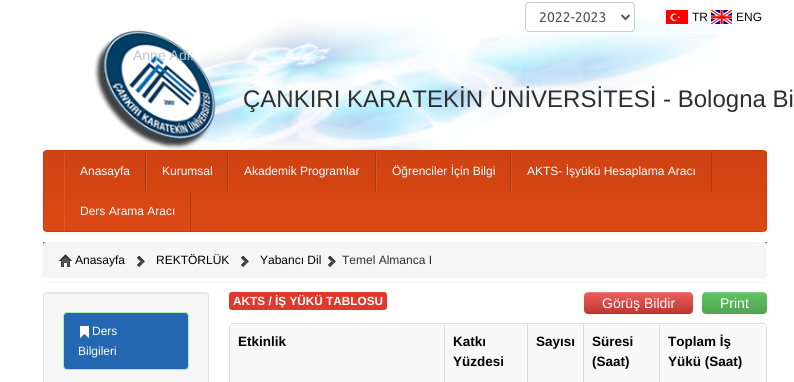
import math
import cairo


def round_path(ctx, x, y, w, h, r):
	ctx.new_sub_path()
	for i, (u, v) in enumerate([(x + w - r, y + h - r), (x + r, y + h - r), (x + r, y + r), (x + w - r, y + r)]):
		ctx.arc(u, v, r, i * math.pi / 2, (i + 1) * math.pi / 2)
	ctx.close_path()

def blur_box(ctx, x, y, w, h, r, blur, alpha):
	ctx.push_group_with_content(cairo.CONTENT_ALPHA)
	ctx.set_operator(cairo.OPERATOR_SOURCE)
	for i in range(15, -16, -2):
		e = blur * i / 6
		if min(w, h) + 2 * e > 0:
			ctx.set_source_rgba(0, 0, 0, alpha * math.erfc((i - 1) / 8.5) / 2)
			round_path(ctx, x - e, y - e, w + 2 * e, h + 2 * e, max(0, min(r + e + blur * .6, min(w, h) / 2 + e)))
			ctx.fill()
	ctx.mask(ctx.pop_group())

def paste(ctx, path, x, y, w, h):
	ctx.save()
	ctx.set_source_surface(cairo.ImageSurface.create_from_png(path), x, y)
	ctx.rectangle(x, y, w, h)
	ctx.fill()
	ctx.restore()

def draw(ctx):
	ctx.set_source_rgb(1, 1, 1)
	ctx.paint()
	paste(ctx, 'media/3.png', 94, 20, 636, 130)
	ctx.set_source_rgb(1, 1, 1)
	round_path(ctx, 525.5, 2.5, 109, 29, 3.5)
	ctx.fill_preserve()
	ctx.set_source_rgb(0.8, 0.8, 0.8)
	ctx.set_line_width(1)
	ctx.stroke()
	ctx.new_path()
	ctx.move_to(621.5, 15)
	ctx.line_to(625.5, 19)
	ctx.line_to(629.5, 15)
	ctx.set_source_rgb(0.333, 0.333, 0.333)
	ctx.set_line_width(2)
	ctx.stroke()
	ctx.select_font_face('Ubuntu')
	ctx.set_font_size(14)
	ctx.move_to(539, 22)
	ctx.show_text('2022-2023')
	paste(ctx, 'media/1.png', 666, 10, 22, 14)
	ctx.select_font_face('Liberation Sans')
	ctx.set_font_size(12)
	ctx.set_source_rgb(0, 0, 0)
	ctx.move_to(692, 21)
	ctx.show_text('TR')
	paste(ctx, 'media/2.png', 711, 10, 21, 14)
	ctx.move_to(736, 21)
	ctx.show_text('ENG')
	ctx.set_font_size(24)
	ctx.set_source_rgb(0.188, 0.18, 0.18)
	ctx.move_to(243, 107)
	ctx.show_text('ÇANKIRI KARATEKİN ÜNİVERSİTESİ - Bologna Bi')
	ctx.set_source_rgb(0, 0, 0)
	blur_box(ctx, 43, 151, 724, 82, 4, 2, 0.07)
	ctx.save()
	round_path(ctx, 43, 150, 724, 82, 4)
	ctx.clip()
	gradient = cairo.LinearGradient(405, 151, 405, 231)
	gradient.add_color_stop_rgba(0, 0.808, 0.259, 0.075, 1)
	gradient.add_color_stop_rgba(1, 0.867, 0.282, 0.078, 1)
	ctx.set_source(gradient)
	ctx.rectangle(43, 151, 724, 80)
	ctx.fill()
	ctx.restore()
	gradient = cairo.LinearGradient(405, 151, 405, 231)
	gradient.add_color_stop_rgba(0, 0.827, 0.333, 0.169, 1)
	gradient.add_color_stop_rgba(1, 0.878, 0.353, 0.173, 1)
	ctx.set_source(gradient)
	ctx.rectangle(64, 191, 1, 40)
	ctx.fill()
	gradient = cairo.LinearGradient(405, 151, 405, 231)
	gradient.add_color_stop_rgba(0, 0.647, 0.208, 0.059, 1)
	gradient.add_color_stop_rgba(1, 0.694, 0.227, 0.063, 1)
	ctx.set_source(gradient)
	ctx.rectangle(190, 191, 1, 40)
	ctx.fill()
	gradient = cairo.LinearGradient(405, 151, 405, 231)
	gradient.add_color_stop_rgba(0, 0.827, 0.333, 0.169, 1)
	gradient.add_color_stop_rgba(1, 0.878, 0.353, 0.173, 1)
	ctx.set_source(gradient)
	ctx.rectangle(511, 151, 1, 40)
	ctx.fill()
	gradient = cairo.LinearGradient(405, 151, 405, 231)
	gradient.add_color_stop_rgba(0, 0.647, 0.208, 0.059, 1)
	gradient.add_color_stop_rgba(1, 0.694, 0.227, 0.063, 1)
	ctx.set_source(gradient)
	ctx.rectangle(711, 151, 1, 40)
	ctx.fill()
	gradient = cairo.LinearGradient(405, 151, 405, 231)
	gradient.add_color_stop_rgba(0, 0.827, 0.333, 0.169, 1)
	gradient.add_color_stop_rgba(1, 0.878, 0.353, 0.173, 1)
	ctx.set_source(gradient)
	ctx.rectangle(376, 151, 1, 40)
	ctx.fill()
	gradient = cairo.LinearGradient(405, 151, 405, 231)
	gradient.add_color_stop_rgba(0, 0.647, 0.208, 0.059, 1)
	gradient.add_color_stop_rgba(1, 0.694, 0.227, 0.063, 1)
	ctx.set_source(gradient)
	ctx.rectangle(510, 151, 1, 40)
	ctx.fill()
	gradient = cairo.LinearGradient(405, 151, 405, 231)
	gradient.add_color_stop_rgba(0, 0.827, 0.333, 0.169, 1)
	gradient.add_color_stop_rgba(1, 0.878, 0.353, 0.173, 1)
	ctx.set_source(gradient)
	ctx.rectangle(228, 151, 1, 40)
	ctx.fill()
	gradient = cairo.LinearGradient(405, 151, 405, 231)
	gradient.add_color_stop_rgba(0, 0.647, 0.208, 0.059, 1)
	gradient.add_color_stop_rgba(1, 0.694, 0.227, 0.063, 1)
	ctx.set_source(gradient)
	ctx.rectangle(375, 151, 1, 40)
	ctx.fill()
	gradient = cairo.LinearGradient(405, 151, 405, 231)
	gradient.add_color_stop_rgba(0, 0.827, 0.333, 0.169, 1)
	gradient.add_color_stop_rgba(1, 0.878, 0.353, 0.173, 1)
	ctx.set_source(gradient)
	ctx.rectangle(146, 151, 1, 40)
	ctx.fill()
	gradient = cairo.LinearGradient(405, 151, 405, 231)
	gradient.add_color_stop_rgba(0, 0.647, 0.208, 0.059, 1)
	gradient.add_color_stop_rgba(1, 0.694, 0.227, 0.063, 1)
	ctx.set_source(gradient)
	ctx.rectangle(227, 151, 1, 40)
	ctx.fill()
	gradient = cairo.LinearGradient(405, 151, 405, 231)
	gradient.add_color_stop_rgba(0, 0.827, 0.333, 0.169, 1)
	gradient.add_color_stop_rgba(1, 0.878, 0.353, 0.173, 1)
	ctx.set_source(gradient)
	ctx.rectangle(64, 151, 1, 40)
	ctx.fill()
	gradient = cairo.LinearGradient(405, 151, 405, 231)
	gradient.add_color_stop_rgba(0, 0.647, 0.208, 0.059, 1)
	gradient.add_color_stop_rgba(1, 0.694, 0.227, 0.063, 1)
	ctx.set_source(gradient)
	ctx.rectangle(145, 151, 1, 40)
	ctx.fill()
	round_path(ctx, 43.5, 150.5, 723, 81, 3.5)
	ctx.set_source_rgb(0.776, 0.251, 0.071)
	ctx.set_line_width(1)
	ctx.stroke()
	ctx.set_font_size(12)
	ctx.set_source_rgb(1, 1, 1)
	for x, y, s in [
		(80, 175, 'Anasayfa'),
		(162, 175, 'Kurumsal'),
		(244, 175, 'Akademik Programlar'),
		(392, 175, 'Öğrenciler İçin Bilgi'),
		(527, 175, 'AKTS- İşyükü Hesaplama Aracı'),
		(80, 215, 'Ders Arama Aracı'),
	]:
		ctx.move_to(x, y)
		ctx.show_text(s)
	ctx.set_source_rgb(0.961, 0.961, 0.961)
	round_path(ctx, 43, 292, 166, 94, 4)
	ctx.fill()
	ctx.set_source_rgb(0.914, 0.914, 0.914)
	ctx.new_path()
	ctx.move_to(47, 294)
	ctx.line_to(205, 294)
	ctx.curve_to(207, 294, 208, 295, 208, 297)
	ctx.curve_to(208, 295, 207, 293, 205, 293)
	ctx.line_to(47, 293)
	ctx.curve_to(45, 293, 44, 295, 44, 297)
	ctx.curve_to(44, 295, 45, 294, 47, 294)
	ctx.close_path()
	ctx.fill()
	round_path(ctx, 43.5, 292.5, 165, 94, 3.5)
	ctx.set_source_rgb(0.89, 0.89, 0.89)
	ctx.stroke()
	ctx.set_source_rgb(0.133, 0.404, 0.686)
	round_path(ctx, 63.5, 312.5, 125, 57, 3.5)
	ctx.fill_preserve()
	ctx.set_source_rgb(0.718, 0.91, 0.714)
	ctx.stroke()
	paste(ctx, 'media/4.png', 80, 326, 9, 13)
	ctx.set_source_rgb(1, 1, 1)
	ctx.move_to(92, 335)
	ctx.show_text('Ders')
	ctx.move_to(78, 355)
	ctx.show_text('Bilgileri')
	ctx.set_font_size(14)
	ctx.set_source_rgb(0.706, 0.78, 0.824)
	ctx.move_to(133, 60)
	ctx.show_text('Anne Adi:')
	ctx.set_source_rgb(0.875, 0.22, 0.173)
	round_path(ctx, 229, 292, 158, 18, 3)
	ctx.fill()
	ctx.select_font_face('Liberation Sans', cairo.FONT_SLANT_NORMAL, cairo.FONT_WEIGHT_BOLD)
	ctx.set_font_size(11.8)
	ctx.set_source_rgb(1, 1, 1)
	ctx.move_to(233, 305)
	ctx.show_text('AKTS / İŞ YÜKÜ TABLOSU')
	ctx.set_source_rgb(0.867, 0.867, 0.867)
	ctx.set_fill_rule(cairo.FILL_RULE_EVEN_ODD)
	ctx.new_path()
	ctx.move_to(233, 323)
	ctx.line_to(763, 323)
	ctx.curve_to(765, 323, 767, 325, 767, 327)
	ctx.line_to(767, 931)
	ctx.curve_to(767, 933, 765, 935, 763, 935)
	ctx.line_to(233, 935)
	ctx.curve_to(231, 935, 229, 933, 229, 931)
	ctx.line_to(229, 327)
	ctx.curve_to(229, 325, 231, 323, 233, 323)
	ctx.close_path()
	ctx.move_to(233, 324)
	ctx.line_to(763, 324)
	ctx.curve_to(765, 324, 766, 325, 766, 327)
	ctx.line_to(766, 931)
	ctx.curve_to(766, 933, 765, 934, 763, 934)
	ctx.line_to(233, 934)
	ctx.curve_to(231, 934, 229, 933, 229, 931)
	ctx.line_to(229, 327)
	ctx.curve_to(229, 325, 231, 324, 233, 324)
	ctx.close_path()
	ctx.fill()
	ctx.set_source_rgb(0.976, 0.976, 0.976)
	ctx.new_path()
	ctx.move_to(233, 324)
	ctx.line_to(444, 324)
	ctx.line_to(444, 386)
	ctx.line_to(229, 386)
	ctx.line_to(229, 328)
	ctx.curve_to(229, 326, 231, 324, 233, 324)
	ctx.close_path()
	ctx.fill()
	ctx.set_source_rgb(0.867, 0.867, 0.867)
	ctx.rectangle(229, 326, 1, 56)
	ctx.fill()
	ctx.set_font_size(13.5)
	ctx.set_source_rgb(0, 0, 0)
	ctx.move_to(238, 346)
	ctx.show_text('Etkinlik')
	ctx.set_source_rgb(0.976, 0.976, 0.976)
	ctx.rectangle(445, 324, 82, 58)
	ctx.fill()
	ctx.set_source_rgb(0.867, 0.867, 0.867)
	ctx.rectangle(444, 324, 1, 58)
	ctx.fill()
	ctx.set_source_rgb(0, 0, 0)
	ctx.move_to(453, 346)
	ctx.show_text('Katkı')
	ctx.move_to(453, 366)
	ctx.show_text('Yüzdesi')
	ctx.set_source_rgb(0.976, 0.976, 0.976)
	ctx.rectangle(528, 324, 55, 58)
	ctx.fill()
	ctx.set_source_rgb(0.867, 0.867, 0.867)
	ctx.rectangle(527, 324, 1, 58)
	ctx.fill()
	ctx.set_source_rgb(0, 0, 0)
	ctx.move_to(536, 346)
	ctx.show_text('Sayısı')
	ctx.set_source_rgb(0.976, 0.976, 0.976)
	ctx.rectangle(584, 324, 75, 58)
	ctx.fill()
	ctx.set_source_rgb(0.867, 0.867, 0.867)
	ctx.rectangle(583, 324, 1, 58)
	ctx.fill()
	ctx.set_source_rgb(0, 0, 0)
	ctx.move_to(592, 346)
	ctx.show_text('Süresi')
	ctx.move_to(592, 366)
	ctx.show_text('(Saat)')
	ctx.set_source_rgb(0.976, 0.976, 0.976)
	ctx.new_path()
	ctx.move_to(659, 324)
	ctx.line_to(762, 324)
	ctx.curve_to(764, 324, 766, 326, 766, 328)
	ctx.line_to(766, 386)
	ctx.line_to(659, 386)
	ctx.close_path()
	ctx.fill()
	ctx.set_source_rgb(0.867, 0.867, 0.867)
	ctx.rectangle(659, 324, 1, 58)
	ctx.fill()
	ctx.set_source_rgb(0, 0, 0)
	ctx.move_to(668, 346)
	ctx.show_text('Toplam İş')
	ctx.move_to(668, 366)
	ctx.show_text('Yükü (Saat)')
	ctx.set_source_rgb(0, 0, 0)
	blur_box(ctx, 584, 293, 109, 22, 4, 1, 0.05)
	gradient = cairo.LinearGradient(639, 292, 639, 314)
	gradient.add_color_stop_rgba(0, 0.933, 0.373, 0.357, 1)
	gradient.add_color_stop_rgba(1, 0.741, 0.212, 0.184, 1)
	ctx.set_source(gradient)
	round_path(ctx, 584, 292, 109, 22, 4)
	ctx.fill()
	ctx.select_font_face('Liberation Sans')
	ctx.set_font_size(14)
	ctx.set_source_rgb(1, 1, 1)
	ctx.move_to(602, 308)
	ctx.show_text('Görüş Bildir')
	ctx.set_source_rgba(1, 1, 1, 0.2)
	ctx.set_fill_rule(cairo.FILL_RULE_WINDING)
	ctx.new_path()
	ctx.move_to(588, 293)
	ctx.line_to(689, 293)
	ctx.curve_to(691, 293, 693, 295, 693, 297)
	ctx.curve_to(693, 288, 676, 292, 672, 292)
	ctx.line_to(605, 292)
	ctx.curve_to(601, 292, 584, 288, 584, 297)
	ctx.curve_to(584, 295, 586, 293, 588, 293)
	ctx.close_path()
	ctx.fill()
	ctx.set_source_rgb(0, 0, 0)
	blur_box(ctx, 702, 293, 65, 22, 4, 1, 0.05)
	gradient = cairo.LinearGradient(735, 292, 735, 314)
	gradient.add_color_stop_rgba(0, 0.384, 0.769, 0.384, 1)
	gradient.add_color_stop_rgba(1, 0.318, 0.639, 0.318, 1)
	ctx.set_source(gradient)
	round_path(ctx, 702, 292, 65, 22, 4)
	ctx.fill()
	ctx.set_source_rgb(1, 1, 1)
	ctx.move_to(720, 308)
	ctx.show_text('Print')
	ctx.set_source_rgba(1, 1, 1, 0.2)
	ctx.new_path()
	ctx.move_to(706, 293)
	ctx.line_to(763, 293)
	ctx.curve_to(765, 293, 767, 295, 767, 297)
	ctx.curve_to(767, 290, 759, 292, 754, 292)
	ctx.line_to(716, 292)
	ctx.curve_to(710, 292, 702, 290, 702, 297)
	ctx.curve_to(702, 295, 704, 293, 706, 293)
	ctx.close_path()
	ctx.fill()
	paste(ctx, 'media/5.png', 43, 242, 724, 34)
	ctx.set_source_rgb(0.961, 0.961, 0.961)
	round_path(ctx, 43, 242, 724, 36, 4)
	ctx.fill()
	paste(ctx, 'media/6.png', 59, 254, 13, 14)
	ctx.set_font_size(12)
	ctx.set_source_rgb(0, 0, 0)
	ctx.move_to(75, 264)
	ctx.show_text('Anasayfa')
	paste(ctx, 'media/7.png', 137, 256, 8, 12)
	ctx.move_to(156, 264)
	ctx.show_text('REKTÖRLÜK')
	paste(ctx, 'media/7.png', 241, 256, 8, 12)
	ctx.move_to(260, 264)
	ctx.show_text('Yabancı Dil')
	paste(ctx, 'media/7.png', 328, 256, 8, 12)
	ctx.set_source_rgb(0.188, 0.18, 0.18)
	ctx.move_to(342, 264)
	ctx.show_text('Temel Almanca I')
	ctx.set_source_rgb(0.961, 0.961, 0.961)
	ctx.rectangle(43, 282, 724, 1)
	ctx.fill()


surface = cairo.ImageSurface(cairo.FORMAT_RGB24, 794, 382)
ctx = cairo.Context(surface)
options = cairo.FontOptions()
options.set_hint_metrics(cairo.HINT_METRICS_OFF)
options.set_hint_style(cairo.HINT_STYLE_NONE)
ctx.set_font_options(options)
ctx.set_miter_limit(4)
draw(ctx)
surface.write_to_png('image.png')
